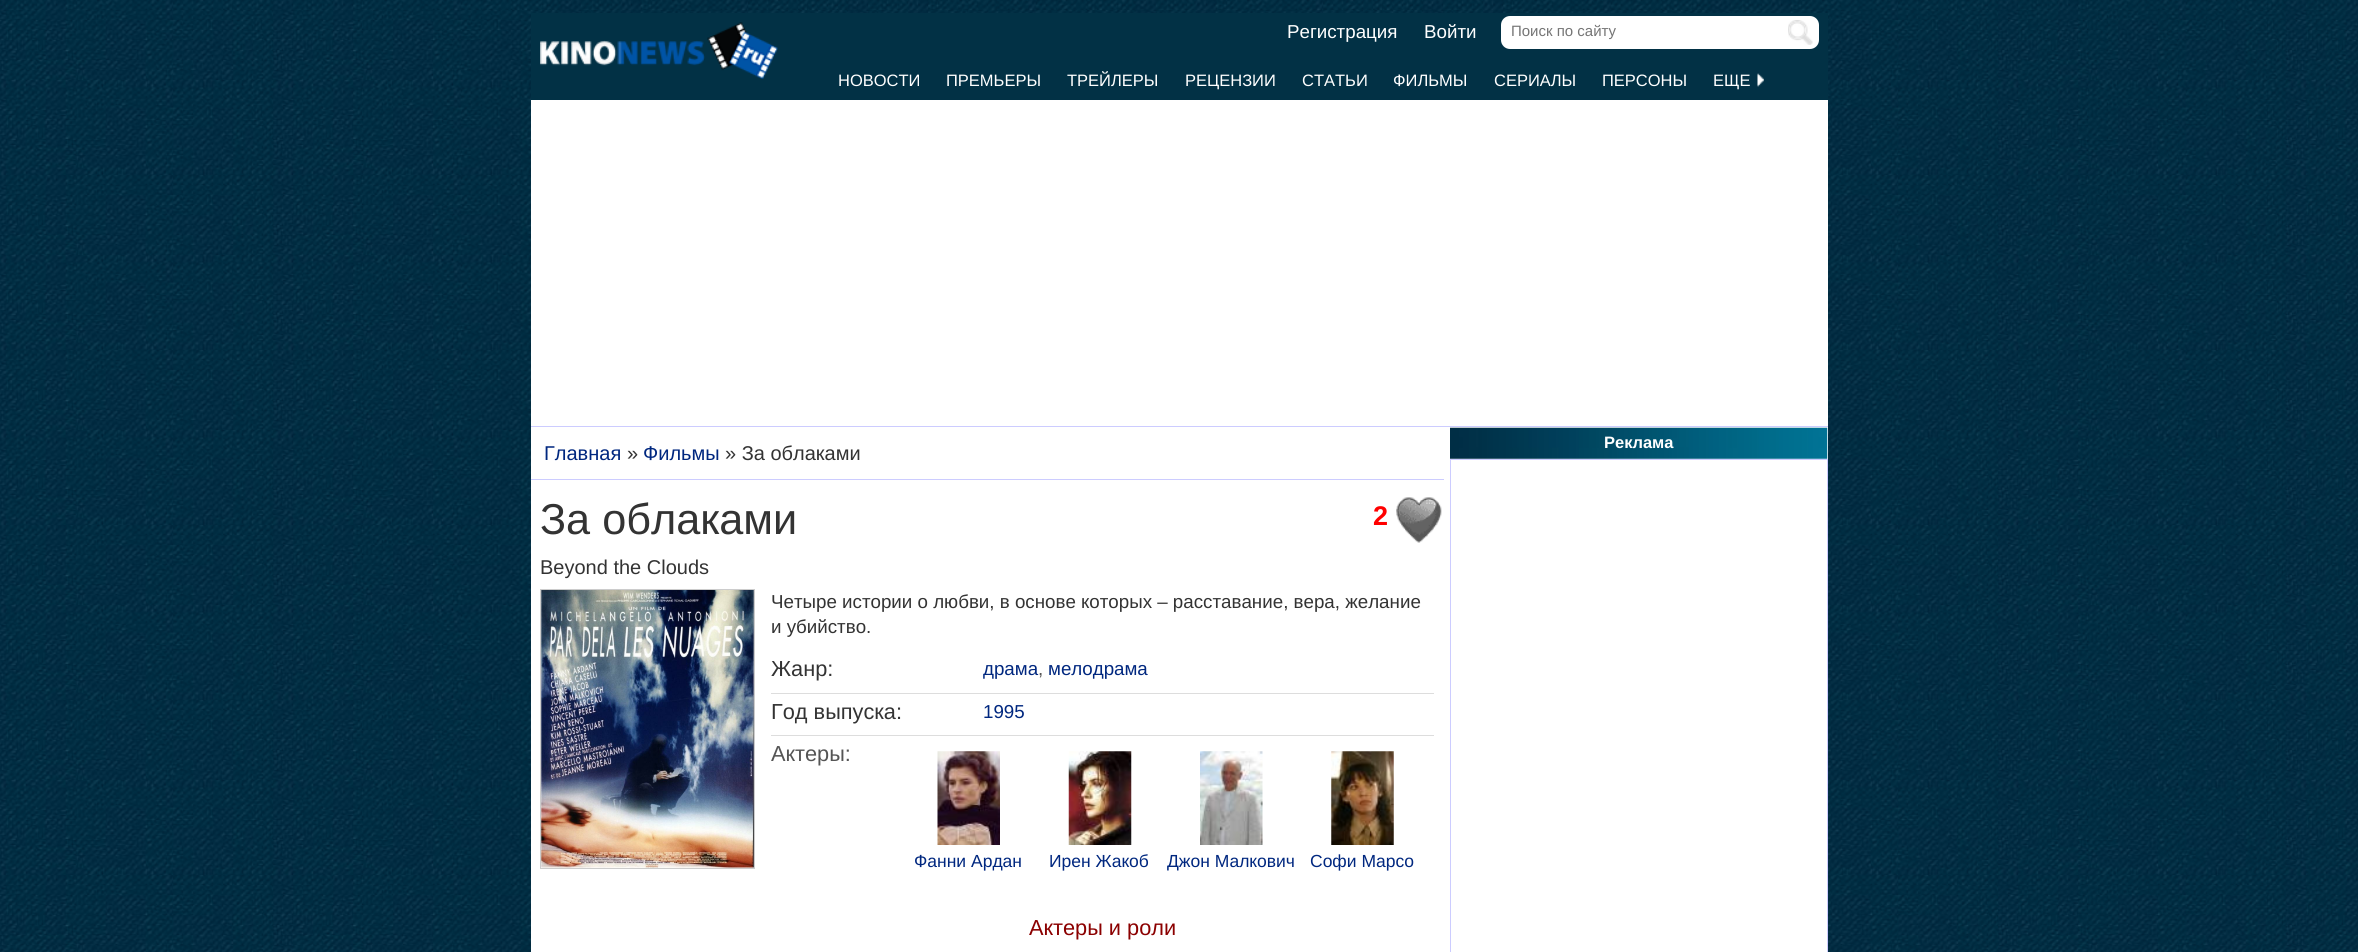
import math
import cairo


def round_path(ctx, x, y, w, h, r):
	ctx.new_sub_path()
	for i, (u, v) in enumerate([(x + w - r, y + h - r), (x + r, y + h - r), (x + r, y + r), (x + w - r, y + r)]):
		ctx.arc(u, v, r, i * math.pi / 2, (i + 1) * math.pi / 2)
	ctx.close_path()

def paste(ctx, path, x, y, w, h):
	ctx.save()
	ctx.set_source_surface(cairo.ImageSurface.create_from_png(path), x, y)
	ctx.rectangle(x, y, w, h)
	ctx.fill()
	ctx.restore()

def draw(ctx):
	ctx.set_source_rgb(1, 1, 1)
	ctx.paint()
	paste(ctx, 'media/1.png', 0, 0, 2358, 952)
	ctx.set_source_rgb(1, 1, 1)
	ctx.rectangle(531, 100, 1297, 852)
	ctx.fill()
	ctx.set_source_rgb(0.008, 0.192, 0.271)
	ctx.rectangle(531, 13, 1297, 87)
	ctx.fill()
	paste(ctx, 'media/2.png', 540, 22, 238, 57)
	ctx.select_font_face('Liberation Sans')
	ctx.set_font_size(18.75)
	ctx.set_source_rgb(1, 1, 1)
	ctx.move_to(1287, 38)
	ctx.show_text('Регистрация')
	ctx.move_to(1424, 38)
	ctx.show_text('Войти')
	round_path(ctx, 1501, 16, 318, 33, 9)
	ctx.fill()
	ctx.set_font_size(15)
	ctx.set_source_rgb(0.459, 0.459, 0.459)
	ctx.move_to(1511, 36)
	ctx.show_text('Поиск по сайту')
	paste(ctx, 'media/3.png', 1788, 20, 25, 25)
	ctx.set_font_size(16.5)
	ctx.set_source_rgb(1, 1, 1)
	for x, y, s in [
		(838, 86, 'НОВОСТИ'),
		(946, 86, 'ПРЕМЬЕРЫ'),
		(1067, 86, 'ТРЕЙЛЕРЫ'),
		(1185, 86, 'РЕЦЕНЗИИ'),
		(1302, 86, 'СТАТЬИ'),
		(1393, 86, 'ФИЛЬМЫ'),
		(1494, 86, 'СЕРИАЛЫ'),
		(1602, 86, 'ПЕРСОНЫ'),
		(1713, 86, 'ЕЩЕ'),
	]:
		ctx.move_to(x, y)
		ctx.show_text(s)
	paste(ctx, 'media/4.png', 1757, 73, 7, 14)
	ctx.set_source_rgb(0.8, 0.8, 1)
	ctx.rectangle(531, 426, 1297, 1)
	ctx.fill()
	paste(ctx, 'media/5.png', 1450, 427, 378, 32)
	ctx.select_font_face('Liberation Sans', cairo.FONT_SLANT_NORMAL, cairo.FONT_WEIGHT_BOLD)
	ctx.set_source_rgb(1, 1, 1)
	ctx.move_to(1604, 448)
	ctx.show_text('Реклама')
	ctx.rectangle(1450.5, 459.5, 377, 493)
	ctx.set_source_rgb(0.8, 0.8, 1)
	ctx.set_line_width(1)
	ctx.stroke()
	ctx.rectangle(531, 479, 913, 1)
	ctx.fill()
	ctx.select_font_face('Liberation Sans')
	ctx.set_font_size(20)
	ctx.set_source_rgb(0, 0.153, 0.498)
	ctx.move_to(544, 460)
	ctx.show_text('Главная')
	ctx.set_source_rgb(0.2, 0.2, 0.2)
	ctx.move_to(627, 460)
	ctx.show_text('»')
	ctx.set_source_rgb(0, 0.153, 0.498)
	ctx.move_to(643, 460)
	ctx.show_text('Фильмы')
	ctx.set_source_rgb(0.2, 0.2, 0.2)
	ctx.move_to(725, 460)
	ctx.show_text('» За облаками')
	ctx.set_font_size(43.25)
	ctx.move_to(540, 534)
	ctx.show_text('За облаками')
	ctx.set_font_size(20)
	ctx.move_to(540, 574)
	ctx.show_text('Beyond the Clouds')
	ctx.select_font_face('Liberation Sans', cairo.FONT_SLANT_NORMAL, cairo.FONT_WEIGHT_BOLD)
	ctx.set_font_size(27)
	ctx.set_source_rgb(1, 0, 0)
	ctx.move_to(1373, 525)
	ctx.show_text('2')
	paste(ctx, 'media/6.png', 1396, 497, 46, 46)
	ctx.rectangle(540.5, 589.5, 214, 279)
	ctx.set_source_rgb(0.8, 0.8, 0.8)
	ctx.stroke()
	paste(ctx, 'media/7.png', 541, 590, 213, 278)
	ctx.select_font_face('Liberation Sans')
	ctx.set_font_size(18.75)
	ctx.set_source_rgb(0.2, 0.2, 0.2)
	ctx.move_to(771, 608)
	ctx.show_text('Четыре истории о любви, в основе которых – расставание, вера, желание')
	ctx.move_to(771, 633)
	ctx.show_text('и убийство.')
	ctx.set_source_rgb(0.867, 0.867, 0.867)
	ctx.rectangle(771, 693, 663, 1)
	ctx.fill()
	ctx.set_font_size(21.75)
	ctx.set_source_rgb(0.2, 0.2, 0.2)
	ctx.move_to(771, 676)
	ctx.show_text('Жанр:')
	ctx.set_font_size(18.75)
	ctx.set_source_rgb(0, 0.153, 0.498)
	ctx.move_to(983, 675)
	ctx.show_text('драма')
	ctx.set_source_rgb(0.333, 0.333, 0.333)
	ctx.move_to(1038, 675)
	ctx.show_text(',')
	ctx.set_source_rgb(0, 0.153, 0.498)
	ctx.move_to(1048, 675)
	ctx.show_text('мелодрама')
	ctx.set_source_rgb(0.867, 0.867, 0.867)
	ctx.rectangle(771, 735, 663, 1)
	ctx.fill()
	ctx.set_font_size(21.75)
	ctx.set_source_rgb(0.2, 0.2, 0.2)
	ctx.move_to(771, 719)
	ctx.show_text('Год выпуска:')
	ctx.set_font_size(18.75)
	ctx.set_source_rgb(0, 0.153, 0.498)
	ctx.move_to(983, 718)
	ctx.show_text('1995')
	ctx.set_font_size(21.75)
	ctx.set_source_rgb(0.333, 0.333, 0.333)
	ctx.move_to(771, 761)
	ctx.show_text('Актеры:')
	paste(ctx, 'media/8.png', 937, 751, 63, 94)
	ctx.set_font_size(17.5)
	ctx.set_source_rgb(0, 0.153, 0.498)
	ctx.move_to(914, 867)
	ctx.show_text('Фанни Ардан')
	paste(ctx, 'media/9.png', 1068, 751, 64, 94)
	ctx.move_to(1049, 867)
	ctx.show_text('Ирен Жакоб')
	paste(ctx, 'media/10.png', 1200, 751, 63, 94)
	ctx.move_to(1167, 867)
	ctx.show_text('Джон Малкович')
	paste(ctx, 'media/11.png', 1331, 751, 63, 94)
	ctx.move_to(1310, 867)
	ctx.show_text('Софи Марсо')
	ctx.set_font_size(21.75)
	ctx.set_source_rgb(0.545, 0, 0)
	ctx.move_to(1029, 935)
	ctx.show_text('Актеры и роли')


surface = cairo.ImageSurface(cairo.FORMAT_RGB24, 2358, 952)
ctx = cairo.Context(surface)
options = cairo.FontOptions()
options.set_hint_metrics(cairo.HINT_METRICS_OFF)
options.set_hint_style(cairo.HINT_STYLE_NONE)
ctx.set_font_options(options)
ctx.set_miter_limit(4)
draw(ctx)
surface.write_to_png('image.png')
